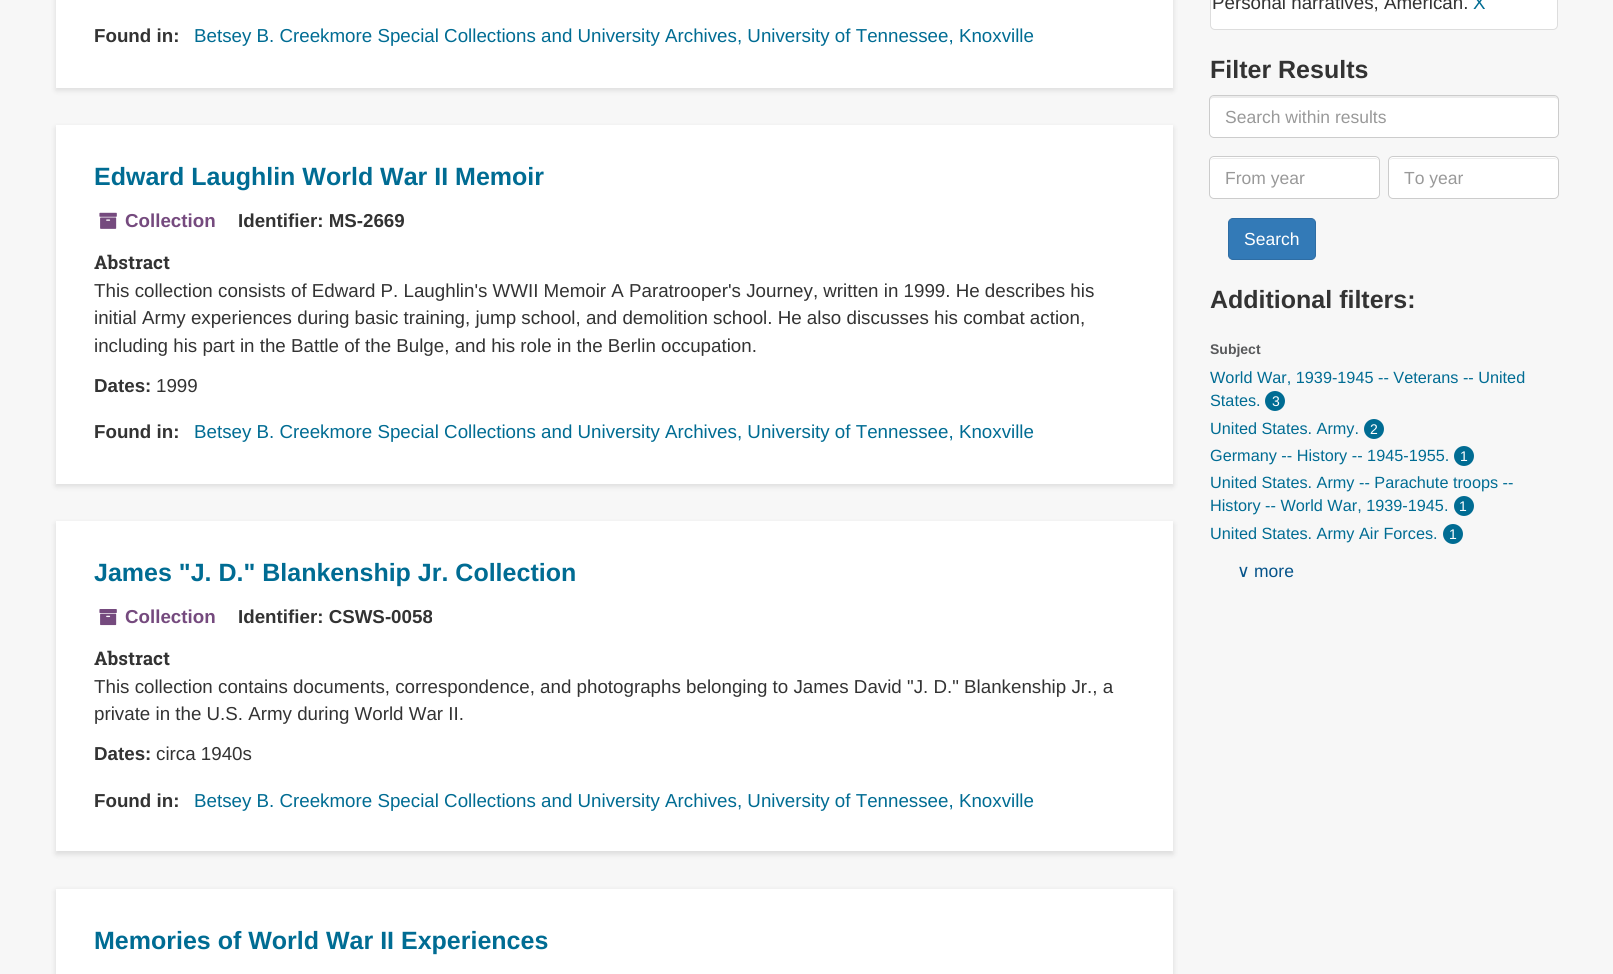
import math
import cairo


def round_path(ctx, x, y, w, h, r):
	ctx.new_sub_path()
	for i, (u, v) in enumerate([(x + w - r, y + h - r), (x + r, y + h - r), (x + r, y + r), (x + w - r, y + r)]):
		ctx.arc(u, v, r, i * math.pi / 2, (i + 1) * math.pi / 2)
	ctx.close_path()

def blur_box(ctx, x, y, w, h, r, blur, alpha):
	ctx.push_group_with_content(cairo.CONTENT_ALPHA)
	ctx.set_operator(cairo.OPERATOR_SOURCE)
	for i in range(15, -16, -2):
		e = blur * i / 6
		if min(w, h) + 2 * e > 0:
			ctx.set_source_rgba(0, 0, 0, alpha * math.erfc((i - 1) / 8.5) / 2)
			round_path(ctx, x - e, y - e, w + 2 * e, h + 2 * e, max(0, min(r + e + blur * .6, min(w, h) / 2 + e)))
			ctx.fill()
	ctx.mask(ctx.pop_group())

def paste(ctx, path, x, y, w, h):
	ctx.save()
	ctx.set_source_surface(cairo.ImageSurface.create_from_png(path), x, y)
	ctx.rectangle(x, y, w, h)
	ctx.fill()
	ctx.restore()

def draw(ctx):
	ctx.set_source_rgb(0.965, 0.965, 0.965)
	ctx.paint()
	ctx.set_source_rgb(0.2, 0.2, 0.2)
	blur_box(ctx, 56, -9, 1117, 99, 0, 3, 0.15)
	ctx.set_source_rgb(1, 1, 1)
	ctx.rectangle(56, 0, 1117, 88)
	ctx.fill()
	ctx.select_font_face('Liberation Sans', cairo.FONT_SLANT_NORMAL, cairo.FONT_WEIGHT_BOLD)
	ctx.set_font_size(18.75)
	ctx.set_source_rgb(0.2, 0.2, 0.2)
	ctx.move_to(94, 42)
	ctx.show_text('Found in:')
	ctx.select_font_face('Liberation Sans')
	ctx.set_source_rgb(0, 0.424, 0.576)
	ctx.move_to(194, 42)
	ctx.show_text('Betsey B. Creekmore Special Collections and University Archives, University of Tennessee, Knoxville')
	ctx.set_source_rgb(0.2, 0.2, 0.2)
	blur_box(ctx, 56, 128, 1117, 358, 0, 3, 0.15)
	ctx.set_source_rgb(1, 1, 1)
	ctx.rectangle(56, 125, 1117, 359)
	ctx.fill()
	ctx.select_font_face('Liberation Sans', cairo.FONT_SLANT_NORMAL, cairo.FONT_WEIGHT_BOLD)
	ctx.set_font_size(25)
	ctx.set_source_rgb(0, 0.424, 0.576)
	ctx.move_to(94, 185)
	ctx.show_text('Edward Laughlin World War II Memoir')
	paste(ctx, 'media/1.png', 99, 212, 18, 17)
	ctx.set_font_size(18.75)
	ctx.set_source_rgb(0.459, 0.29, 0.494)
	ctx.move_to(125, 227)
	ctx.show_text('Collection')
	ctx.set_source_rgb(0.2, 0.2, 0.2)
	ctx.move_to(238, 227)
	ctx.show_text('Identifier: MS-2669')
	ctx.select_font_face('Roboto Slab', cairo.FONT_SLANT_NORMAL, cairo.FONT_WEIGHT_BOLD)
	ctx.move_to(94, 269)
	ctx.show_text('Abstract')
	ctx.select_font_face('Liberation Sans')
	for x, y, s in [
		(94, 297, 'This collection consists of Edward P. Laughlin\'s WWII Memoir A Paratrooper\'s Journey, written in 1999. He describes his'),
		(94, 324, 'initial Army experiences during basic training, jump school, and demolition school. He also discusses his combat action,'),
		(94, 352, 'including his part in the Battle of the Bulge, and his role in the Berlin occupation.'),
	]:
		ctx.move_to(x, y)
		ctx.show_text(s)
	ctx.select_font_face('Liberation Sans', cairo.FONT_SLANT_NORMAL, cairo.FONT_WEIGHT_BOLD)
	ctx.move_to(94, 392)
	ctx.show_text('Dates:')
	ctx.select_font_face('Liberation Sans')
	ctx.move_to(156, 392)
	ctx.show_text('1999')
	ctx.select_font_face('Liberation Sans', cairo.FONT_SLANT_NORMAL, cairo.FONT_WEIGHT_BOLD)
	ctx.move_to(94, 438)
	ctx.show_text('Found in:')
	ctx.select_font_face('Liberation Sans')
	ctx.set_source_rgb(0, 0.424, 0.576)
	ctx.move_to(194, 438)
	ctx.show_text('Betsey B. Creekmore Special Collections and University Archives, University of Tennessee, Knoxville')
	ctx.set_source_rgb(0.2, 0.2, 0.2)
	blur_box(ctx, 56, 524, 1117, 330, 0, 3, 0.15)
	ctx.set_source_rgb(1, 1, 1)
	ctx.rectangle(56, 521, 1117, 330)
	ctx.fill()
	ctx.select_font_face('Liberation Sans', cairo.FONT_SLANT_NORMAL, cairo.FONT_WEIGHT_BOLD)
	ctx.set_font_size(25)
	ctx.set_source_rgb(0, 0.424, 0.576)
	ctx.move_to(94, 581)
	ctx.show_text('James "J. D." Blankenship Jr. Collection')
	paste(ctx, 'media/2.png', 99, 609, 18, 17)
	ctx.set_font_size(18.75)
	ctx.set_source_rgb(0.459, 0.29, 0.494)
	ctx.move_to(125, 623)
	ctx.show_text('Collection')
	ctx.set_source_rgb(0.2, 0.2, 0.2)
	ctx.move_to(238, 623)
	ctx.show_text('Identifier: CSWS-0058')
	ctx.select_font_face('Roboto Slab', cairo.FONT_SLANT_NORMAL, cairo.FONT_WEIGHT_BOLD)
	ctx.move_to(94, 665)
	ctx.show_text('Abstract')
	ctx.select_font_face('Liberation Sans')
	ctx.move_to(94, 693)
	ctx.show_text('This collection contains documents, correspondence, and photographs belonging to James David "J. D." Blankenship Jr., a')
	ctx.move_to(94, 720)
	ctx.show_text('private in the U.S. Army during World War II.')
	ctx.select_font_face('Liberation Sans', cairo.FONT_SLANT_NORMAL, cairo.FONT_WEIGHT_BOLD)
	ctx.move_to(94, 760)
	ctx.show_text('Dates:')
	ctx.select_font_face('Liberation Sans')
	ctx.move_to(156, 760)
	ctx.show_text('circa 1940s')
	ctx.select_font_face('Liberation Sans', cairo.FONT_SLANT_NORMAL, cairo.FONT_WEIGHT_BOLD)
	ctx.move_to(94, 807)
	ctx.show_text('Found in:')
	ctx.select_font_face('Liberation Sans')
	ctx.set_source_rgb(0, 0.424, 0.576)
	ctx.move_to(194, 807)
	ctx.show_text('Betsey B. Creekmore Special Collections and University Archives, University of Tennessee, Knoxville')
	ctx.set_source_rgb(0.2, 0.2, 0.2)
	blur_box(ctx, 56, 891, 1117, 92, 0, 3, 0.15)
	ctx.set_source_rgb(1, 1, 1)
	ctx.rectangle(56, 889, 1117, 85)
	ctx.fill()
	ctx.select_font_face('Liberation Sans', cairo.FONT_SLANT_NORMAL, cairo.FONT_WEIGHT_BOLD)
	ctx.set_font_size(25)
	ctx.set_source_rgb(0, 0.424, 0.576)
	ctx.move_to(94, 949)
	ctx.show_text('Memories of World War II Experiences')
	ctx.set_source_rgb(1, 1, 1)
	ctx.new_path()
	ctx.move_to(1210.5, -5.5)
	ctx.line_to(1557.5, -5.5)
	ctx.line_to(1557.5, 25)
	ctx.curve_to(1557.5, 27.5, 1555.5, 29.5, 1553, 29.5)
	ctx.line_to(1215, 29.5)
	ctx.curve_to(1212.5, 29.5, 1210.5, 27.5, 1210.5, 25)
	ctx.close_path()
	ctx.fill_preserve()
	ctx.set_source_rgb(0.867, 0.867, 0.867)
	ctx.set_line_width(1)
	ctx.stroke()
	ctx.select_font_face('Liberation Sans')
	ctx.set_font_size(18.75)
	ctx.set_source_rgb(0.2, 0.2, 0.2)
	ctx.move_to(1212, 9)
	ctx.show_text('Personal narratives, American.')
	ctx.set_source_rgb(0, 0.424, 0.576)
	ctx.move_to(1473, 9)
	ctx.show_text('X')
	ctx.select_font_face('Liberation Sans', cairo.FONT_SLANT_NORMAL, cairo.FONT_WEIGHT_BOLD)
	ctx.set_font_size(25)
	ctx.set_source_rgb(0.2, 0.2, 0.2)
	ctx.move_to(1210, 78)
	ctx.show_text('Filter Results')
	ctx.set_source_rgb(1, 1, 1)
	round_path(ctx, 1209, 95, 350, 43, 5)
	ctx.fill()
	ctx.set_source_rgb(0.925, 0.925, 0.925)
	ctx.new_path()
	ctx.move_to(1214, 98)
	ctx.line_to(1554, 98)
	ctx.curve_to(1556, 98, 1558, 99, 1558, 101)
	ctx.line_to(1558, 100)
	ctx.curve_to(1558, 98, 1556, 96, 1554, 96)
	ctx.line_to(1214, 96)
	ctx.curve_to(1212, 96, 1210, 98, 1210, 100)
	ctx.line_to(1210, 101)
	ctx.curve_to(1210, 99, 1212, 98, 1214, 98)
	ctx.close_path()
	ctx.fill()
	round_path(ctx, 1209.5, 95.5, 349, 42, 4.5)
	ctx.set_source_rgb(0.8, 0.8, 0.8)
	ctx.stroke()
	ctx.select_font_face('Liberation Sans')
	ctx.set_font_size(17.5)
	ctx.set_source_rgb(0.6, 0.6, 0.6)
	ctx.move_to(1225, 123)
	ctx.show_text('Search within results')
	ctx.set_source_rgb(1, 1, 1)
	round_path(ctx, 1209, 156, 171, 43, 5)
	ctx.fill()
	ctx.set_source_rgb(0.925, 0.925, 0.925)
	ctx.new_path()
	ctx.move_to(1214, 159)
	ctx.line_to(1375, 159)
	ctx.curve_to(1377, 159, 1379, 160, 1379, 162)
	ctx.curve_to(1379, 160, 1377, 158, 1375, 158)
	ctx.line_to(1214, 158)
	ctx.curve_to(1212, 158, 1210, 160, 1210, 162)
	ctx.curve_to(1210, 160, 1212, 159, 1214, 159)
	ctx.close_path()
	ctx.fill()
	round_path(ctx, 1209.5, 156.5, 170, 42, 4.5)
	ctx.set_source_rgb(0.8, 0.8, 0.8)
	ctx.stroke()
	ctx.set_source_rgb(0.6, 0.6, 0.6)
	ctx.move_to(1225, 184)
	ctx.show_text('From year')
	ctx.set_source_rgb(1, 1, 1)
	round_path(ctx, 1388, 156, 171, 43, 5)
	ctx.fill()
	ctx.set_source_rgb(0.925, 0.925, 0.925)
	ctx.new_path()
	ctx.move_to(1392, 159)
	ctx.line_to(1554, 159)
	ctx.curve_to(1556, 159, 1558, 160, 1558, 162)
	ctx.curve_to(1558, 160, 1556, 158, 1554, 158)
	ctx.line_to(1393, 158)
	ctx.curve_to(1392, 158, 1390, 159, 1390, 160)
	ctx.close_path()
	ctx.fill()
	round_path(ctx, 1388.5, 156.5, 170, 42, 4.5)
	ctx.set_source_rgb(0.8, 0.8, 0.8)
	ctx.stroke()
	ctx.set_source_rgb(0.6, 0.6, 0.6)
	ctx.move_to(1404, 184)
	ctx.show_text('To year')
	ctx.set_source_rgb(0.2, 0.478, 0.718)
	round_path(ctx, 1228.5, 218.5, 87, 41, 4.5)
	ctx.fill_preserve()
	ctx.set_source_rgb(0.18, 0.427, 0.643)
	ctx.stroke()
	ctx.set_source_rgb(1, 1, 1)
	ctx.move_to(1244, 245)
	ctx.show_text('Search')
	ctx.select_font_face('Liberation Sans', cairo.FONT_SLANT_NORMAL, cairo.FONT_WEIGHT_BOLD)
	ctx.set_font_size(25)
	ctx.set_source_rgb(0.2, 0.2, 0.2)
	ctx.move_to(1210, 308)
	ctx.show_text('Additional filters:')
	ctx.set_font_size(14)
	ctx.set_source_rgb(0.345, 0.349, 0.357)
	ctx.move_to(1210, 354)
	ctx.show_text('Subject')
	ctx.select_font_face('Liberation Sans')
	ctx.set_font_size(16.25)
	ctx.set_source_rgb(0, 0.424, 0.576)
	ctx.move_to(1210, 383)
	ctx.show_text('World War, 1939-1945 -- Veterans -- United')
	ctx.move_to(1210, 406)
	ctx.show_text('States.')
	ctx.new_path()
	ctx.arc(1275, 401, 10, 0, 2 * math.pi)
	ctx.fill()
	ctx.set_font_size(14)
	ctx.set_source_rgb(1, 1, 1)
	ctx.move_to(1272, 406)
	ctx.show_text('3')
	ctx.set_font_size(16.25)
	ctx.set_source_rgb(0, 0.424, 0.576)
	ctx.move_to(1210, 434)
	ctx.show_text('United States. Army.')
	ctx.new_path()
	ctx.arc(1374, 429, 10, 0, 2 * math.pi)
	ctx.fill()
	ctx.set_font_size(14)
	ctx.set_source_rgb(1, 1, 1)
	ctx.move_to(1370, 434)
	ctx.show_text('2')
	ctx.set_font_size(16.25)
	ctx.set_source_rgb(0, 0.424, 0.576)
	ctx.move_to(1210, 461)
	ctx.show_text('Germany -- History -- 1945-1955.')
	ctx.new_path()
	ctx.arc(1464, 456, 10, 0, 2 * math.pi)
	ctx.fill()
	ctx.set_font_size(14)
	ctx.set_source_rgb(1, 1, 1)
	ctx.move_to(1460, 461)
	ctx.show_text('1')
	ctx.set_font_size(16.25)
	ctx.set_source_rgb(0, 0.424, 0.576)
	ctx.move_to(1210, 488)
	ctx.show_text('United States. Army -- Parachute troops --')
	ctx.move_to(1210, 511)
	ctx.show_text('History -- World War, 1939-1945.')
	ctx.new_path()
	ctx.arc(1464, 506, 10, 0, 2 * math.pi)
	ctx.fill()
	ctx.set_font_size(14)
	ctx.set_source_rgb(1, 1, 1)
	ctx.move_to(1459, 511)
	ctx.show_text('1')
	ctx.set_font_size(16.25)
	ctx.set_source_rgb(0, 0.424, 0.576)
	ctx.move_to(1210, 539)
	ctx.show_text('United States. Army Air Forces.')
	ctx.new_path()
	ctx.arc(1453, 534, 10, 0, 2 * math.pi)
	ctx.fill()
	ctx.set_font_size(14)
	ctx.set_source_rgb(1, 1, 1)
	ctx.move_to(1449, 539)
	ctx.show_text('1')
	ctx.select_font_face('DejaVu Sans')
	ctx.set_font_size(17.5)
	ctx.set_source_rgb(0.02, 0.325, 0.541)
	ctx.move_to(1237, 577)
	ctx.show_text('∨')
	ctx.select_font_face('Liberation Sans')
	ctx.move_to(1254, 577)
	ctx.show_text('more')


surface = cairo.ImageSurface(cairo.FORMAT_RGB24, 1613, 974)
ctx = cairo.Context(surface)
options = cairo.FontOptions()
options.set_hint_metrics(cairo.HINT_METRICS_OFF)
options.set_hint_style(cairo.HINT_STYLE_NONE)
ctx.set_font_options(options)
ctx.set_miter_limit(4)
draw(ctx)
surface.write_to_png('image.png')
